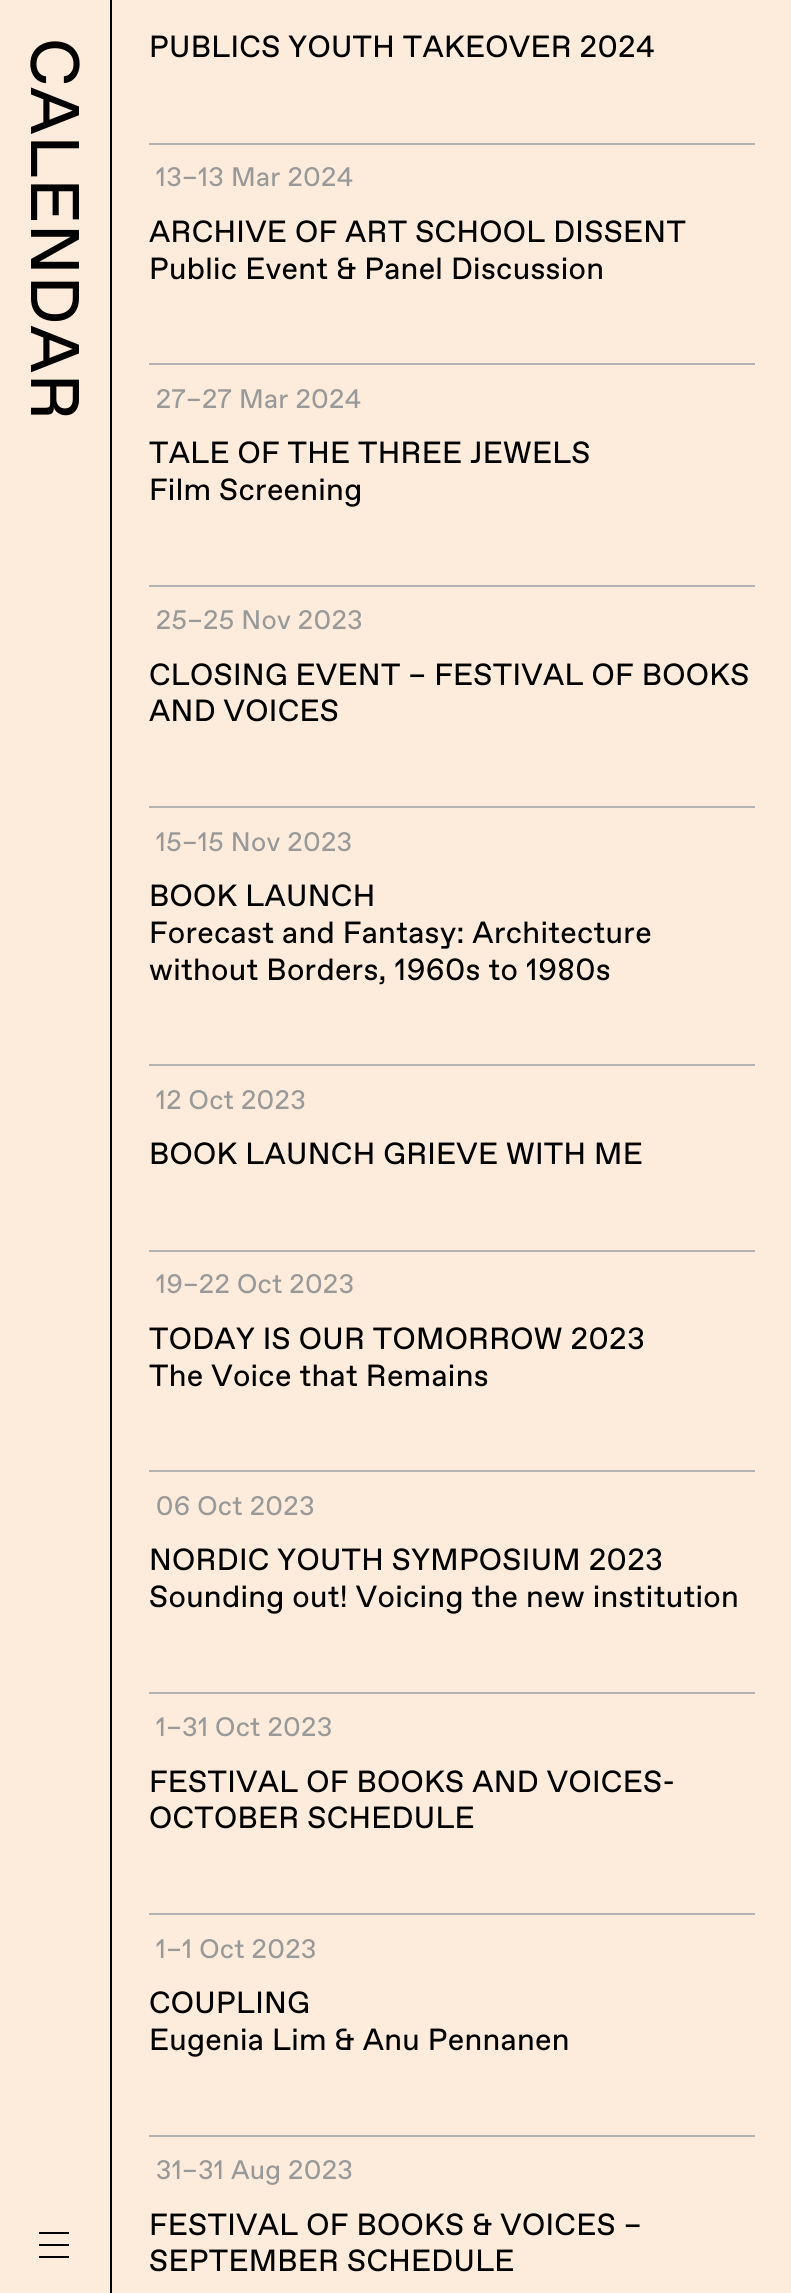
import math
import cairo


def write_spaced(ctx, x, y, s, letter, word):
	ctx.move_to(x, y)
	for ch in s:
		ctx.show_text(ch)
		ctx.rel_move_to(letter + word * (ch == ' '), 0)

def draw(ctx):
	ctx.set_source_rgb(0.992, 0.922, 0.863)
	ctx.paint()
	ctx.set_source_rgb(0, 0, 0)
	ctx.rectangle(110, 0, 2, 2293)
	ctx.fill()
	ctx.select_font_face('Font')
	ctx.set_font_size(68.5)
	ctx.save()
	ctx.translate(31, 38)
	ctx.rotate(90 * math.pi / 180)
	write_spaced(ctx, 0, 0, 'CALENDAR', 0.75, 0)
	ctx.restore()
	ctx.rectangle(39, 2244, 30, 2)
	ctx.rectangle(39, 2232, 30, 2)
	ctx.rectangle(39, 2256, 30, 2)
	ctx.fill()
	ctx.set_font_size(30.6)
	write_spaced(ctx, 149, 57, 'PUBLICS YOUTH TAKEOVER 2024', 0.3, 0)
	ctx.set_source_rgb(0.702, 0.702, 0.702)
	ctx.rectangle(149, 143, 606, 2)
	ctx.fill()
	ctx.set_font_size(26.75)
	ctx.set_source_rgb(0.6, 0.6, 0.6)
	write_spaced(ctx, 149, 186, ' 13–13 Mar 2024', 0.25, 0)
	ctx.set_font_size(30.6)
	ctx.set_source_rgb(0, 0, 0)
	write_spaced(ctx, 149, 242, 'ARCHIVE OF ART SCHOOL DISSENT', 0.3, 0)
	write_spaced(ctx, 149, 279, 'Public Event & Panel Discussion', 0.3, 0)
	ctx.set_source_rgb(0.702, 0.702, 0.702)
	ctx.rectangle(149, 363, 606, 2)
	ctx.fill()
	ctx.set_font_size(26.75)
	ctx.set_source_rgb(0.6, 0.6, 0.6)
	write_spaced(ctx, 149, 408, ' 27–27 Mar 2024', 0.25, 0)
	ctx.set_font_size(30.6)
	ctx.set_source_rgb(0, 0, 0)
	write_spaced(ctx, 149, 463, 'TALE OF THE THREE JEWELS', 0.3, 0)
	write_spaced(ctx, 149, 500, 'Film Screening', 0.3, 0)
	ctx.set_source_rgb(0.702, 0.702, 0.702)
	ctx.rectangle(149, 585, 606, 2)
	ctx.fill()
	ctx.set_font_size(26.75)
	ctx.set_source_rgb(0.6, 0.6, 0.6)
	write_spaced(ctx, 149, 629, ' 25–25 Nov 2023', 0.25, 0)
	ctx.set_font_size(30.6)
	ctx.set_source_rgb(0, 0, 0)
	write_spaced(ctx, 149, 685, 'CLOSING EVENT – FESTIVAL OF BOOKS', 0.3, 0)
	write_spaced(ctx, 149, 721, 'AND VOICES', 0.3, 0)
	ctx.set_source_rgb(0.702, 0.702, 0.702)
	ctx.rectangle(149, 806, 606, 2)
	ctx.fill()
	ctx.set_font_size(26.75)
	ctx.set_source_rgb(0.6, 0.6, 0.6)
	write_spaced(ctx, 149, 851, ' 15–15 Nov 2023', 0.25, 0)
	ctx.set_font_size(30.6)
	ctx.set_source_rgb(0, 0, 0)
	for x, y, s in [
		(149, 906, 'BOOK LAUNCH'),
		(149, 943, 'Forecast and Fantasy: Architecture'),
		(149, 980, 'without Borders, 1960s to 1980s'),
	]:
		write_spaced(ctx, x, y, s, 0.3, 0)
	ctx.set_source_rgb(0.702, 0.702, 0.702)
	ctx.rectangle(149, 1064, 606, 2)
	ctx.fill()
	ctx.set_font_size(26.75)
	ctx.set_source_rgb(0.6, 0.6, 0.6)
	write_spaced(ctx, 149, 1109, ' 12 Oct 2023', 0.25, 0)
	ctx.set_font_size(30.6)
	ctx.set_source_rgb(0, 0, 0)
	write_spaced(ctx, 149, 1164, 'BOOK LAUNCH GRIEVE WITH ME', 0.3, 0)
	ctx.set_source_rgb(0.702, 0.702, 0.702)
	ctx.rectangle(149, 1250, 606, 2)
	ctx.fill()
	ctx.set_font_size(26.75)
	ctx.set_source_rgb(0.6, 0.6, 0.6)
	write_spaced(ctx, 149, 1293, ' 19–22 Oct 2023', 0.25, 0)
	ctx.set_font_size(30.6)
	ctx.set_source_rgb(0, 0, 0)
	write_spaced(ctx, 149, 1349, 'TODAY IS OUR TOMORROW 2023', 0.3, 0)
	write_spaced(ctx, 149, 1386, 'The Voice that Remains', 0.3, 0)
	ctx.set_source_rgb(0.702, 0.702, 0.702)
	ctx.rectangle(149, 1470, 606, 2)
	ctx.fill()
	ctx.set_font_size(26.75)
	ctx.set_source_rgb(0.6, 0.6, 0.6)
	write_spaced(ctx, 149, 1515, ' 06 Oct 2023', 0.25, 0)
	ctx.set_font_size(30.6)
	ctx.set_source_rgb(0, 0, 0)
	write_spaced(ctx, 149, 1570, 'NORDIC YOUTH SYMPOSIUM 2023', 0.3, 0)
	write_spaced(ctx, 149, 1607, 'Sounding out! Voicing the new institution', 0.3, 0)
	ctx.set_source_rgb(0.702, 0.702, 0.702)
	ctx.rectangle(149, 1692, 606, 2)
	ctx.fill()
	ctx.set_font_size(26.75)
	ctx.set_source_rgb(0.6, 0.6, 0.6)
	write_spaced(ctx, 149, 1736, ' 1–31 Oct 2023', 0.25, 0)
	ctx.set_font_size(30.6)
	ctx.set_source_rgb(0, 0, 0)
	write_spaced(ctx, 149, 1792, 'FESTIVAL OF BOOKS AND VOICES-', 0.3, 0)
	write_spaced(ctx, 149, 1828, 'OCTOBER SCHEDULE', 0.3, 0)
	ctx.set_source_rgb(0.702, 0.702, 0.702)
	ctx.rectangle(149, 1913, 606, 2)
	ctx.fill()
	ctx.set_font_size(26.75)
	ctx.set_source_rgb(0.6, 0.6, 0.6)
	write_spaced(ctx, 149, 1958, ' 1–1 Oct 2023', 0.25, 0)
	ctx.set_font_size(30.6)
	ctx.set_source_rgb(0, 0, 0)
	write_spaced(ctx, 149, 2013, 'COUPLING', 0.3, 0)
	write_spaced(ctx, 149, 2050, 'Eugenia Lim & Anu Pennanen', 0.3, 0)
	ctx.set_source_rgb(0.702, 0.702, 0.702)
	ctx.rectangle(149, 2135, 606, 2)
	ctx.fill()
	ctx.set_font_size(26.75)
	ctx.set_source_rgb(0.6, 0.6, 0.6)
	write_spaced(ctx, 149, 2179, ' 31–31 Aug 2023', 0.25, 0)
	ctx.set_font_size(30.6)
	ctx.set_source_rgb(0, 0, 0)
	write_spaced(ctx, 149, 2235, 'FESTIVAL OF BOOKS & VOICES –', 0.3, 0)
	write_spaced(ctx, 149, 2271, 'SEPTEMBER SCHEDULE', 0.3, 0)


surface = cairo.ImageSurface(cairo.FORMAT_RGB24, 791, 2293)
ctx = cairo.Context(surface)
options = cairo.FontOptions()
options.set_hint_metrics(cairo.HINT_METRICS_OFF)
options.set_hint_style(cairo.HINT_STYLE_NONE)
ctx.set_font_options(options)
ctx.set_miter_limit(4)
draw(ctx)
surface.write_to_png('image.png')
